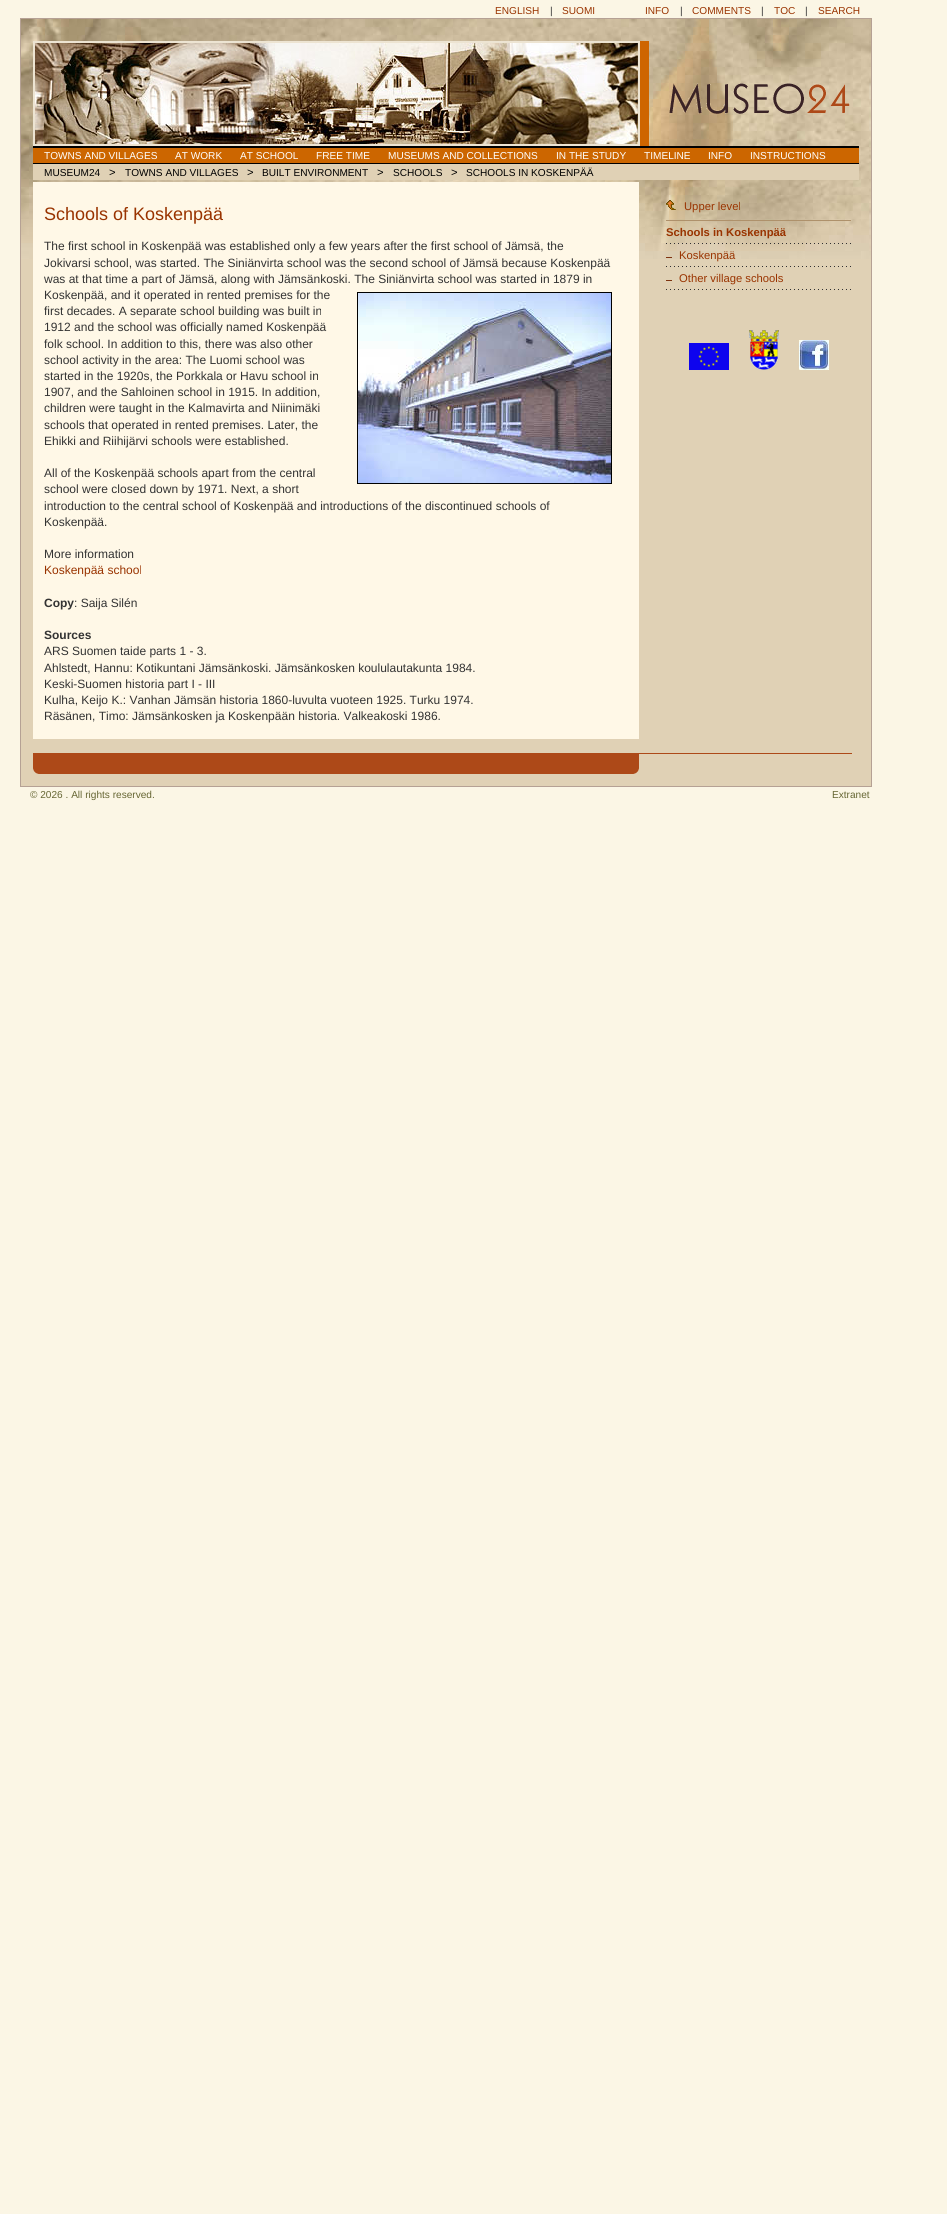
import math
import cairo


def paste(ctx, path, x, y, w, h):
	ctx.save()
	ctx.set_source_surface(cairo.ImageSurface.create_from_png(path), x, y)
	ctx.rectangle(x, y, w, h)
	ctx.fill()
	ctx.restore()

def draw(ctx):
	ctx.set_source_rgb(0.984, 0.961, 0.898)
	ctx.paint()
	ctx.select_font_face('Liberation Sans')
	ctx.set_font_size(10.1)
	ctx.set_source_rgb(0.6, 0.2, 0)
	ctx.move_to(495, 14)
	ctx.show_text('ENGLISH')
	ctx.set_source_rgb(0.2, 0.2, 0.2)
	ctx.move_to(550, 14)
	ctx.show_text('|')
	ctx.set_source_rgb(0.6, 0.2, 0)
	ctx.move_to(562, 14)
	ctx.show_text('SUOMI')
	ctx.move_to(645, 14)
	ctx.show_text('INFO')
	ctx.set_source_rgb(0.2, 0.2, 0.2)
	ctx.move_to(680, 14)
	ctx.show_text('|')
	ctx.set_source_rgb(0.6, 0.2, 0)
	ctx.move_to(692, 14)
	ctx.show_text('COMMENTS')
	ctx.set_source_rgb(0.2, 0.2, 0.2)
	ctx.move_to(761, 14)
	ctx.show_text('|')
	ctx.set_source_rgb(0.6, 0.2, 0)
	ctx.move_to(774, 14)
	ctx.show_text('TOC')
	ctx.set_source_rgb(0.2, 0.2, 0.2)
	ctx.move_to(805, 14)
	ctx.show_text('|')
	ctx.set_source_rgb(0.6, 0.2, 0)
	ctx.move_to(818, 14)
	ctx.show_text('SEARCH')
	ctx.set_source_rgb(0.878, 0.82, 0.71)
	ctx.rectangle(21, 259, 850, 527)
	ctx.fill()
	paste(ctx, 'media/1.png', 21, 19, 850, 240)
	ctx.rectangle(20.5, 18.5, 851, 768)
	ctx.set_source_rgb(0.71, 0.631, 0.58)
	ctx.set_line_width(1)
	ctx.stroke()
	ctx.set_source_rgb(0.929, 0.894, 0.824)
	ctx.rectangle(33, 41, 605, 2)
	ctx.rectangle(33, 144, 605, 2)
	ctx.rectangle(33, 41, 2, 105)
	ctx.fill()
	paste(ctx, 'media/2.png', 35, 43, 603, 101)
	ctx.rectangle(638, 41, 2, 105)
	ctx.fill()
	ctx.set_source_rgb(0.808, 0.396, 0)
	ctx.rectangle(640, 41, 9, 105)
	ctx.fill()
	paste(ctx, 'media/3.png', 669, 83, 181, 31)
	ctx.set_source_rgb(0.8, 0.4, 0)
	ctx.rectangle(33, 148, 826, 15)
	ctx.fill()
	ctx.set_source_rgb(0, 0, 0)
	ctx.rectangle(33, 146, 826, 2)
	ctx.fill()
	ctx.set_source_rgb(1, 1, 1)
	for x, y, s in [
		(44, 159, 'TOWNS AND VILLAGES'),
		(175, 159, 'AT WORK'),
		(240, 159, 'AT SCHOOL'),
		(316, 159, 'FREE TIME'),
		(388, 159, 'MUSEUMS AND COLLECTIONS'),
		(556, 159, 'IN THE STUDY'),
		(644, 159, 'TIMELINE'),
		(708, 159, 'INFO'),
		(750, 159, 'INSTRUCTIONS'),
	]:
		ctx.move_to(x, y)
		ctx.show_text(s)
	ctx.set_source_rgb(0.878, 0.82, 0.71)
	ctx.rectangle(33, 164, 826, 16)
	ctx.fill()
	ctx.set_source_rgb(0, 0, 0)
	ctx.rectangle(33, 163, 826, 1)
	ctx.fill()
	ctx.move_to(44, 176)
	ctx.show_text('MUSEUM24')
	ctx.set_font_size(11.25)
	ctx.move_to(109, 176)
	ctx.show_text('>')
	ctx.set_font_size(10.1)
	ctx.move_to(125, 176)
	ctx.show_text('TOWNS AND VILLAGES')
	ctx.set_font_size(11.25)
	ctx.move_to(247, 176)
	ctx.show_text('>')
	ctx.set_font_size(10.1)
	ctx.move_to(262, 176)
	ctx.show_text('BUILT ENVIRONMENT')
	ctx.set_font_size(11.25)
	ctx.move_to(377, 176)
	ctx.show_text('>')
	ctx.set_font_size(10.1)
	ctx.move_to(393, 176)
	ctx.show_text('SCHOOLS')
	ctx.set_font_size(11.25)
	ctx.move_to(451, 176)
	ctx.show_text('>')
	ctx.set_font_size(10.1)
	ctx.move_to(466, 176)
	ctx.show_text('SCHOOLS IN KOSKENPÄÄ')
	ctx.set_source_rgb(1, 0.969, 0.906)
	ctx.rectangle(33, 182, 606, 557)
	ctx.fill()
	ctx.set_font_size(18)
	ctx.set_source_rgb(0.6, 0.2, 0)
	ctx.move_to(44, 220)
	ctx.show_text('Schools of Koskenpää')
	ctx.set_font_size(12)
	ctx.set_source_rgb(0.2, 0.2, 0.2)
	for x, y, s in [
		(44, 250, 'The first school in Koskenpää was established only a few years after the first school of Jämsä, the'),
		(44, 267, 'Jokivarsi school, was started. The Siniänvirta school was the second school of Jämsä because Koskenpää'),
		(44, 283, 'was at that time a part of Jämsä, along with Jämsänkoski. The Siniänvirta school was started in 1879 in'),
		(44, 299, 'Koskenpää, and it operated in rented premises for the'),
	]:
		ctx.move_to(x, y)
		ctx.show_text(s)
	ctx.rectangle(357.5, 292.5, 254, 191)
	ctx.set_source_rgb(0, 0, 0)
	ctx.stroke()
	paste(ctx, 'media/4.png', 358, 293, 253, 190)
	ctx.set_source_rgb(0.2, 0.2, 0.2)
	for x, y, s in [
		(44, 315, 'first decades. A separate school building was built in'),
		(44, 331, '1912 and the school was officially named Koskenpää'),
		(44, 348, 'folk school. In addition to this, there was also other'),
		(44, 364, 'school activity in the area: The Luomi school was'),
		(44, 380, 'started in the 1920s, the Porkkala or Havu school in'),
		(44, 396, '1907, and the Sahloinen school in 1915. In addition,'),
		(44, 412, 'children were taught in the Kalmavirta and Niinimäki'),
		(44, 429, 'schools that operated in rented premises. Later, the'),
		(44, 445, 'Ehikki and Riihijärvi schools were established.'),
		(44, 477, 'All of the Koskenpää schools apart from the central'),
		(44, 493, 'school were closed down by 1971. Next, a short'),
		(44, 510, 'introduction to the central school of Koskenpää and introductions of the discontinued schools of'),
		(44, 526, 'Koskenpää.'),
		(44, 558, 'More information'),
	]:
		ctx.move_to(x, y)
		ctx.show_text(s)
	ctx.set_source_rgb(0.6, 0.2, 0)
	ctx.move_to(44, 574)
	ctx.show_text('Koskenpää school')
	ctx.select_font_face('Liberation Sans', cairo.FONT_SLANT_NORMAL, cairo.FONT_WEIGHT_BOLD)
	ctx.set_source_rgb(0.2, 0.2, 0.2)
	ctx.move_to(44, 607)
	ctx.show_text('Copy')
	ctx.select_font_face('Liberation Sans')
	ctx.move_to(74, 607)
	ctx.show_text(': Saija Silén')
	ctx.select_font_face('Liberation Sans', cairo.FONT_SLANT_NORMAL, cairo.FONT_WEIGHT_BOLD)
	ctx.move_to(44, 639)
	ctx.show_text('Sources')
	ctx.select_font_face('Liberation Sans')
	for x, y, s in [
		(44, 655, 'ARS Suomen taide parts 1 - 3.'),
		(44, 672, 'Ahlstedt, Hannu: Kotikuntani Jämsänkoski. Jämsänkosken koululautakunta 1984.'),
		(44, 688, 'Keski-Suomen historia part I - III'),
		(44, 704, 'Kulha, Keijo K.: Vanhan Jämsän historia 1860-luvulta vuoteen 1925. Turku 1974.'),
		(44, 720, 'Räsänen, Timo: Jämsänkosken ja Koskenpään historia. Valkeakoski 1986.'),
	]:
		ctx.move_to(x, y)
		ctx.show_text(s)
	paste(ctx, 'media/5.png', 666, 200, 10, 10)
	ctx.set_font_size(11.25)
	ctx.set_source_rgb(0.6, 0.2, 0)
	ctx.move_to(684, 210)
	ctx.show_text('Upper level')
	ctx.set_source_rgb(0.682, 0.569, 0.42)
	ctx.rectangle(666, 220, 185, 1)
	ctx.fill()
	ctx.select_font_face('Liberation Sans', cairo.FONT_SLANT_NORMAL, cairo.FONT_WEIGHT_BOLD)
	ctx.set_source_rgb(0.6, 0.2, 0)
	ctx.move_to(666, 236)
	ctx.show_text('Schools in Koskenpää')
	paste(ctx, 'media/6.png', 666, 243, 185, 1)
	ctx.set_source_rgb(0.494, 0.2, 0.059)
	ctx.rectangle(666, 257, 6, 1)
	ctx.fill()
	ctx.select_font_face('Liberation Sans')
	ctx.set_source_rgb(0.6, 0.2, 0)
	ctx.move_to(679, 259)
	ctx.show_text('Koskenpää')
	paste(ctx, 'media/7.png', 666, 266, 185, 1)
	ctx.set_source_rgb(0.494, 0.2, 0.059)
	ctx.rectangle(666, 280, 6, 1)
	ctx.fill()
	ctx.set_source_rgb(0.6, 0.2, 0)
	ctx.move_to(679, 282)
	ctx.show_text('Other village schools')
	paste(ctx, 'media/7.png', 666, 289, 185, 1)
	paste(ctx, 'media/8.png', 689, 343, 40, 27)
	paste(ctx, 'media/9.png', 749, 330, 30, 40)
	paste(ctx, 'media/10.png', 799, 340, 30, 30)
	paste(ctx, 'media/11.png', 33, 753, 606, 21)
	ctx.set_source_rgb(0.678, 0.286, 0.094)
	ctx.rectangle(639, 753, 213, 1)
	ctx.fill()
	ctx.set_font_size(10.1)
	ctx.set_source_rgb(0.4, 0.4, 0.2)
	ctx.move_to(30, 798)
	ctx.show_text('© 2026 . All rights reserved.')
	ctx.move_to(832, 798)
	ctx.show_text('Extranet')


surface = cairo.ImageSurface(cairo.FORMAT_RGB24, 947, 2214)
ctx = cairo.Context(surface)
options = cairo.FontOptions()
options.set_hint_metrics(cairo.HINT_METRICS_OFF)
options.set_hint_style(cairo.HINT_STYLE_NONE)
ctx.set_font_options(options)
ctx.set_miter_limit(4)
draw(ctx)
surface.write_to_png('image.png')
